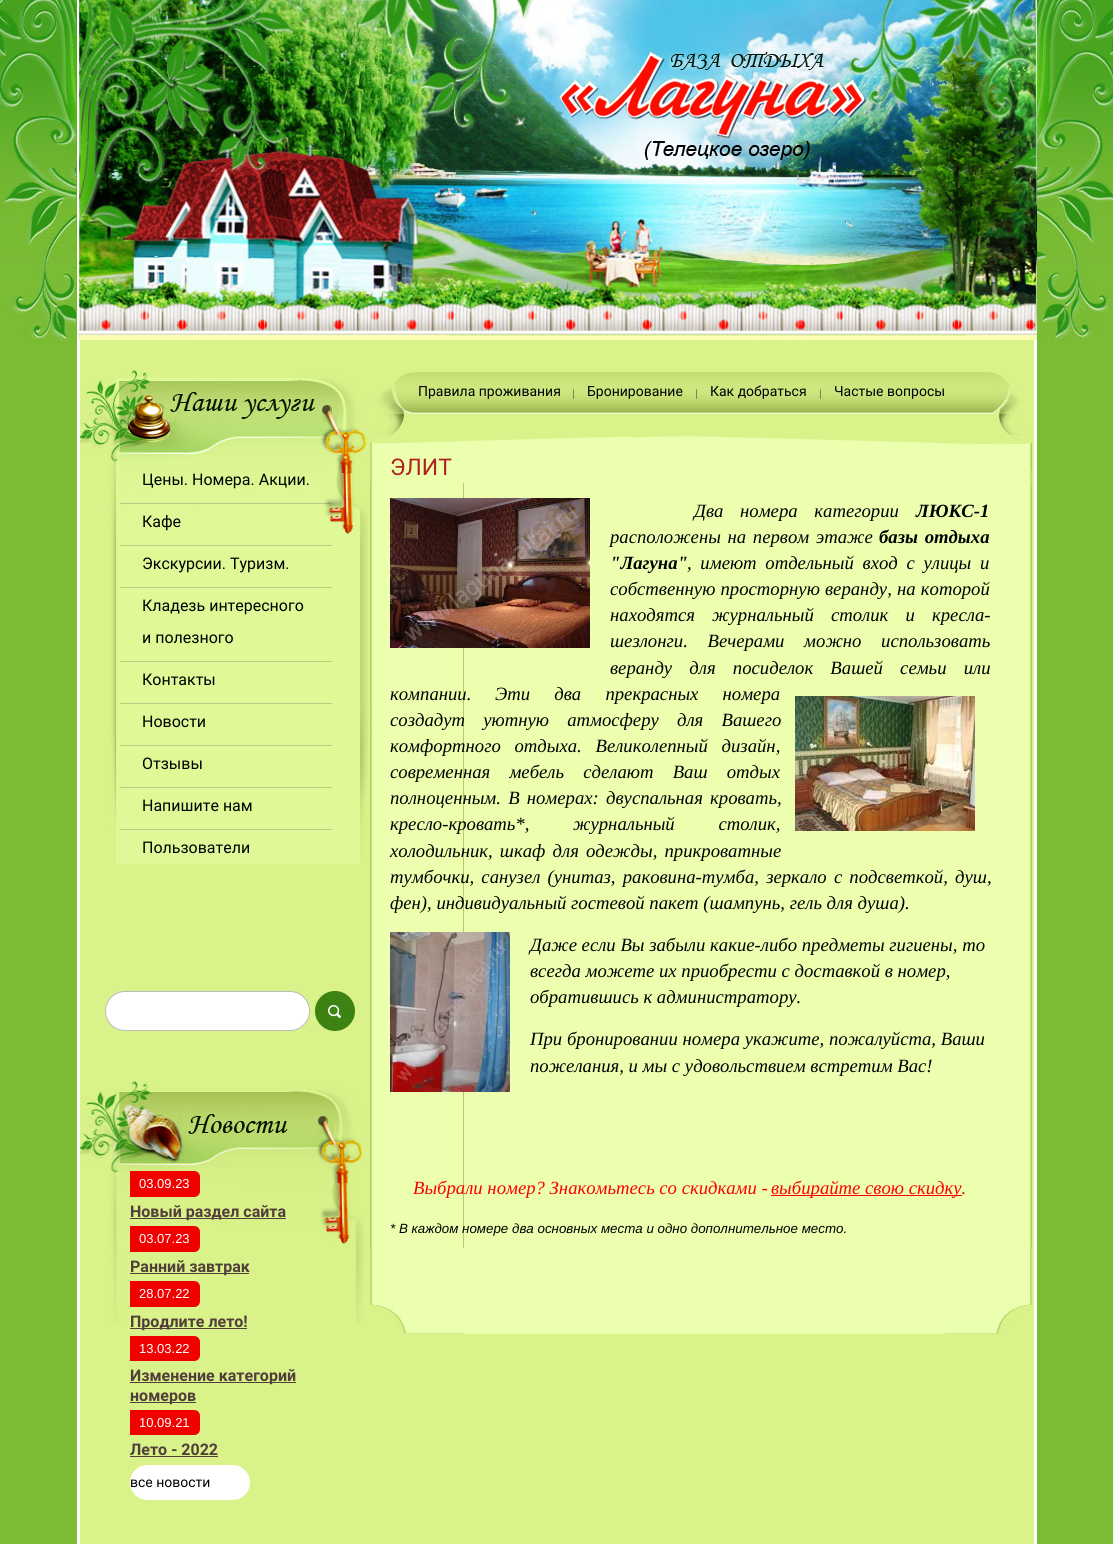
import math
import cairo


def write_spaced(ctx, x, y, s, letter, word):
	ctx.move_to(x, y)
	for ch in s:
		ctx.show_text(ch)
		ctx.rel_move_to(letter + word * (ch == ' '), 0)

def round_path(ctx, x, y, w, h, r):
	ctx.new_sub_path()
	for i, (u, v) in enumerate([(x + w - r, y + h - r), (x + r, y + h - r), (x + r, y + r), (x + w - r, y + r)]):
		ctx.arc(u, v, r, i * math.pi / 2, (i + 1) * math.pi / 2)
	ctx.close_path()

def paste(ctx, path, x, y, w, h):
	ctx.save()
	ctx.set_source_surface(cairo.ImageSurface.create_from_png(path), x, y)
	ctx.rectangle(x, y, w, h)
	ctx.fill()
	ctx.restore()

def draw(ctx):
	ctx.set_source_rgb(0.478, 0.737, 0.204)
	ctx.paint()
	paste(ctx, 'media/1.png', 0, 0, 1113, 340)
	paste(ctx, 'media/2.png', 77, 0, 960, 340)
	paste(ctx, 'media/3.png', 559, 51, 308, 109)
	ctx.set_source_rgb(0.851, 0.949, 0.541)
	ctx.rectangle(80, 340, 954, 1204)
	ctx.fill()
	ctx.set_source_rgb(1, 1, 1)
	ctx.rectangle(1034, 340, 3, 1204)
	ctx.rectangle(77, 340, 3, 1204)
	ctx.fill()
	paste(ctx, 'media/4.png', 80, 370, 289, 494)
	ctx.select_font_face('Roboto')
	ctx.set_font_size(16)
	ctx.set_source_rgb(0, 0, 0)
	ctx.move_to(142, 485)
	ctx.show_text('Цены. Номера. Акции.')
	ctx.set_source_rgba(0.302, 0.302, 0.302, 0.26)
	ctx.rectangle(120, 503, 212, 1)
	ctx.fill()
	ctx.set_source_rgb(0, 0, 0)
	ctx.move_to(142, 527)
	ctx.show_text('Кафе')
	ctx.set_source_rgb(0.725, 0.8, 0.514)
	round_path(ctx, 120, 545, 212, 1, 0.5)
	ctx.fill()
	ctx.set_source_rgb(0, 0, 0)
	ctx.move_to(142, 569)
	ctx.show_text('Экскурсии. Туризм.')
	ctx.set_source_rgb(0.725, 0.8, 0.514)
	round_path(ctx, 120, 587, 212, 1, 0.5)
	ctx.fill()
	ctx.set_source_rgb(0, 0, 0)
	ctx.move_to(142, 611)
	ctx.show_text('Кладезь интересного')
	ctx.move_to(142, 643)
	ctx.show_text('и полезного')
	ctx.set_source_rgb(0.725, 0.8, 0.514)
	round_path(ctx, 120, 661, 212, 1, 0.5)
	ctx.fill()
	ctx.set_source_rgb(0, 0, 0)
	ctx.move_to(142, 685)
	ctx.show_text('Контакты')
	ctx.set_source_rgb(0.725, 0.8, 0.514)
	round_path(ctx, 120, 703, 212, 1, 0.5)
	ctx.fill()
	ctx.set_source_rgb(0, 0, 0)
	ctx.move_to(142, 727)
	ctx.show_text('Новости')
	ctx.set_source_rgb(0.725, 0.8, 0.514)
	round_path(ctx, 120, 745, 212, 1, 0.5)
	ctx.fill()
	ctx.set_source_rgb(0, 0, 0)
	ctx.move_to(142, 769)
	ctx.show_text('Отзывы')
	ctx.set_source_rgb(0.725, 0.8, 0.514)
	round_path(ctx, 120, 787, 212, 1, 0.5)
	ctx.fill()
	ctx.set_source_rgb(0, 0, 0)
	ctx.move_to(142, 811)
	ctx.show_text('Напишите нам')
	ctx.set_source_rgb(0.725, 0.8, 0.522)
	round_path(ctx, 120, 829, 212, 1, 0.5)
	ctx.fill()
	ctx.set_source_rgb(0, 0, 0)
	ctx.move_to(142, 853)
	ctx.show_text('Пользователи')
	ctx.set_source_rgb(1, 1, 1)
	round_path(ctx, 105.5, 991.5, 204, 39, 19.5)
	ctx.fill_preserve()
	ctx.set_source_rgb(0.733, 0.733, 0.733)
	ctx.set_line_width(1)
	ctx.stroke()
	ctx.set_source_rgb(0.235, 0.514, 0.078)
	ctx.arc(335, 1011, 20, 0, 2 * math.pi)
	ctx.fill()
	paste(ctx, 'media/5.png', 328, 1005, 13, 13)
	paste(ctx, 'media/6.png', 80, 1081, 284, 242)
	paste(ctx, 'media/7.png', 188, 1114, 100, 20)
	ctx.set_source_rgb(0.945, 0, 0)
	ctx.new_path()
	ctx.move_to(130, 1171)
	ctx.line_to(194, 1171)
	ctx.curve_to(197.5, 1171, 200, 1173.5, 200, 1177)
	ctx.line_to(200, 1191)
	ctx.curve_to(200, 1194.5, 197.5, 1197, 194, 1197)
	ctx.line_to(130, 1197)
	ctx.close_path()
	ctx.fill()
	ctx.select_font_face('Liberation Sans')
	ctx.set_font_size(13)
	ctx.set_source_rgb(1, 1, 1)
	ctx.move_to(139, 1188)
	ctx.show_text('03.09.23')
	ctx.set_source_rgb(0.322, 0.243, 0.231)
	ctx.rectangle(130, 1218, 156, 1)
	ctx.fill()
	ctx.select_font_face('Roboto', cairo.FONT_SLANT_NORMAL, cairo.FONT_WEIGHT_BOLD)
	ctx.set_font_size(16)
	ctx.move_to(130, 1217)
	ctx.show_text('Новый раздел сайта')
	ctx.set_source_rgb(0.945, 0, 0)
	ctx.new_path()
	ctx.move_to(130, 1226)
	ctx.line_to(194, 1226)
	ctx.curve_to(197.5, 1226, 200, 1228.5, 200, 1232)
	ctx.line_to(200, 1246)
	ctx.curve_to(200, 1249.5, 197.5, 1252, 194, 1252)
	ctx.line_to(130, 1252)
	ctx.close_path()
	ctx.fill()
	ctx.select_font_face('Liberation Sans')
	ctx.set_font_size(13)
	ctx.set_source_rgb(1, 1, 1)
	ctx.move_to(139, 1243)
	ctx.show_text('03.07.23')
	ctx.set_source_rgb(0.322, 0.243, 0.231)
	ctx.rectangle(130, 1273, 119, 1)
	ctx.fill()
	ctx.select_font_face('Roboto', cairo.FONT_SLANT_NORMAL, cairo.FONT_WEIGHT_BOLD)
	ctx.set_font_size(16)
	ctx.move_to(130, 1272)
	ctx.show_text('Ранний завтрак')
	ctx.set_source_rgb(0.945, 0, 0)
	ctx.new_path()
	ctx.move_to(130, 1281)
	ctx.line_to(194, 1281)
	ctx.curve_to(197.5, 1281, 200, 1283.5, 200, 1287)
	ctx.line_to(200, 1301)
	ctx.curve_to(200, 1304.5, 197.5, 1307, 194, 1307)
	ctx.line_to(130, 1307)
	ctx.close_path()
	ctx.fill()
	ctx.select_font_face('Liberation Sans')
	ctx.set_font_size(13)
	ctx.set_source_rgb(1, 1, 1)
	ctx.move_to(139, 1298)
	ctx.show_text('28.07.22')
	ctx.set_source_rgb(0.322, 0.243, 0.231)
	ctx.rectangle(130, 1328, 117, 1)
	ctx.fill()
	ctx.select_font_face('Roboto', cairo.FONT_SLANT_NORMAL, cairo.FONT_WEIGHT_BOLD)
	ctx.set_font_size(16)
	ctx.move_to(130, 1327)
	ctx.show_text('Продлите лето!')
	ctx.set_source_rgb(0.945, 0, 0)
	ctx.new_path()
	ctx.move_to(130, 1336)
	ctx.line_to(194, 1336)
	ctx.curve_to(197.5, 1336, 200, 1338.5, 200, 1342)
	ctx.line_to(200, 1355)
	ctx.curve_to(200, 1358.5, 197.5, 1361, 194, 1361)
	ctx.line_to(130, 1361)
	ctx.close_path()
	ctx.fill()
	ctx.select_font_face('Liberation Sans')
	ctx.set_font_size(13)
	ctx.set_source_rgb(1, 1, 1)
	ctx.move_to(139, 1353)
	ctx.show_text('13.03.22')
	ctx.set_source_rgb(0.322, 0.243, 0.231)
	ctx.rectangle(130, 1382, 166, 1)
	ctx.fill()
	ctx.select_font_face('Roboto', cairo.FONT_SLANT_NORMAL, cairo.FONT_WEIGHT_BOLD)
	ctx.set_font_size(16)
	ctx.move_to(130, 1381)
	ctx.show_text('Изменение категорий')
	ctx.rectangle(130, 1402, 66, 1)
	ctx.fill()
	ctx.move_to(130, 1401)
	ctx.show_text('номеров')
	ctx.set_source_rgb(0.945, 0, 0)
	ctx.new_path()
	ctx.move_to(130, 1410)
	ctx.line_to(194, 1410)
	ctx.curve_to(197.5, 1410, 200, 1412.5, 200, 1416)
	ctx.line_to(200, 1429)
	ctx.curve_to(200, 1432.5, 197.5, 1435, 194, 1435)
	ctx.line_to(130, 1435)
	ctx.close_path()
	ctx.fill()
	ctx.select_font_face('Liberation Sans')
	ctx.set_font_size(13)
	ctx.set_source_rgb(1, 1, 1)
	ctx.move_to(139, 1427)
	ctx.show_text('10.09.21')
	ctx.select_font_face('Roboto', cairo.FONT_SLANT_NORMAL, cairo.FONT_WEIGHT_BOLD)
	ctx.set_font_size(16)
	ctx.set_source_rgb(0.322, 0.243, 0.231)
	ctx.move_to(130, 1455)
	ctx.show_text('Лето - 2022')
	ctx.rectangle(130, 1456, 88, 1)
	ctx.fill()
	ctx.set_source_rgb(1, 1, 1)
	round_path(ctx, 130, 1465, 120, 35, 17.5)
	ctx.fill()
	ctx.select_font_face('Roboto')
	ctx.set_font_size(14)
	ctx.set_source_rgb(0, 0, 0)
	ctx.move_to(130, 1487)
	ctx.show_text('все новости')
	ctx.set_source_rgb(0.922, 1, 0.686)
	ctx.rectangle(464, 435, 482, 899)
	ctx.fill()
	paste(ctx, 'media/9.png', 370, 414, 662, 920)
	paste(ctx, 'media/8.png', 375, 372, 654, 72)
	ctx.set_source_rgb(0, 0, 0)
	ctx.move_to(418, 396)
	ctx.show_text('Правила проживания')
	ctx.set_source_rgba(0.349, 0.349, 0.349, 0.69)
	round_path(ctx, 573, 389, 1, 10, 0.5)
	ctx.fill()
	ctx.set_source_rgb(0, 0, 0)
	ctx.move_to(587, 396)
	ctx.show_text('Бронирование')
	ctx.set_source_rgba(0.349, 0.349, 0.349, 0.69)
	round_path(ctx, 696, 389, 1, 10, 0.5)
	ctx.fill()
	ctx.set_source_rgb(0, 0, 0)
	ctx.move_to(710, 396)
	ctx.show_text('Как добраться')
	ctx.set_source_rgba(0.349, 0.349, 0.349, 0.69)
	round_path(ctx, 820, 389, 1, 10, 0.5)
	ctx.fill()
	ctx.set_source_rgb(0, 0, 0)
	ctx.move_to(834, 396)
	ctx.show_text('Частые вопросы')
	ctx.set_font_size(23)
	ctx.set_source_rgb(0.69, 0.129, 0.129)
	ctx.move_to(390, 475)
	ctx.show_text('ЭЛИТ')
	paste(ctx, 'media/10.png', 390, 498, 200, 150)
	ctx.select_font_face('Liberation Serif', cairo.FONT_SLANT_ITALIC)
	ctx.set_font_size(18.7)
	ctx.set_source_rgb(0, 0, 0)
	write_spaced(ctx, 694, 517, 'Два номера категории', 0, 12)
	ctx.select_font_face('Liberation Serif', cairo.FONT_SLANT_ITALIC, cairo.FONT_WEIGHT_BOLD)
	ctx.move_to(916, 517)
	ctx.show_text('ЛЮКС-1')
	ctx.select_font_face('Liberation Serif', cairo.FONT_SLANT_ITALIC)
	write_spaced(ctx, 610, 543, 'расположены на первом этаже', 0, 2)
	ctx.select_font_face('Liberation Serif', cairo.FONT_SLANT_ITALIC, cairo.FONT_WEIGHT_BOLD)
	write_spaced(ctx, 879, 543, 'базы отдыха', 0, 2)
	ctx.move_to(610, 569)
	ctx.show_text('"Лагуна"')
	ctx.select_font_face('Liberation Serif', cairo.FONT_SLANT_ITALIC)
	write_spaced(ctx, 687, 569, ', имеют отдельный вход с улицы и', 0, 4)
	write_spaced(ctx, 610, 595, 'собственную просторную веранду, на которой', 0, 0.5)
	write_spaced(ctx, 610, 621, 'находятся журнальный столик и кресла-', 0, 12.5)
	write_spaced(ctx, 610, 647, 'шезлонги. Вечерами можно использовать', 0, 15)
	write_spaced(ctx, 610, 674, 'веранду для посиделок Вашей семьи или', 0, 12.5)
	ctx.move_to(390, 700)
	ctx.show_text('компании.')
	write_spaced(ctx, 495, 700, 'Эти два прекрасных номера', 0, 19.5)
	paste(ctx, 'media/11.png', 795, 696, 180, 135)
	write_spaced(ctx, 390, 726, 'создадут уютную атмосферу для Вашего', 0, 13.5)
	write_spaced(ctx, 390, 752, 'комфортного отдыха. Великолепный дизайн,', 0, 9)
	write_spaced(ctx, 390, 778, 'современная мебель сделают Ваш отдых', 0, 14.5)
	write_spaced(ctx, 390, 804, 'полноценным. В номерах: двуспальная кровать,', 0, 2.5)
	write_spaced(ctx, 390, 830, 'кресло-кровать*, журнальный столик,', 0, 39)
	write_spaced(ctx, 390, 857, 'холодильник, шкаф для одежды, прикроватные', 0, 2.5)
	write_spaced(ctx, 390, 883, 'тумбочки, санузел (унитаз, раковина-тумба, зеркало с подсветкой, душ,', 0, 2.5)
	ctx.move_to(390, 909)
	ctx.show_text('фен), индивидуальный гостевой пакет (шампунь, гель для душа).')
	paste(ctx, 'media/12.png', 390, 932, 120, 160)
	for x, y, s in [
		(530, 951, 'Даже если Вы забыли какие-либо предметы гигиены, то'),
		(530, 977, 'всегда можете их приобрести с доставкой в номер,'),
		(530, 1003, 'обратившись к администратору.'),
		(530, 1045, 'При бронировании номера укажите, пожалуйста, Ваши'),
		(530, 1072, 'пожелания, и мы с удовольствием встретим Вас!'),
	]:
		ctx.move_to(x, y)
		ctx.show_text(s)
	ctx.set_source_rgb(1, 0, 0)
	ctx.move_to(413, 1194)
	ctx.show_text('Выбрали номер? Знакомьтесь со скидками -')
	ctx.rectangle(771, 1195, 191, 1)
	ctx.fill()
	ctx.move_to(771, 1194)
	ctx.show_text('выбирайте свою скидку.')
	ctx.select_font_face('Liberation Sans', cairo.FONT_SLANT_ITALIC)
	ctx.set_font_size(13.35)
	ctx.set_source_rgb(0, 0, 0)
	ctx.move_to(390, 1233)
	ctx.show_text('* В каждом номере два основных места и одно дополнительное место.')


surface = cairo.ImageSurface(cairo.FORMAT_RGB24, 1113, 1544)
ctx = cairo.Context(surface)
options = cairo.FontOptions()
options.set_hint_metrics(cairo.HINT_METRICS_OFF)
options.set_hint_style(cairo.HINT_STYLE_NONE)
ctx.set_font_options(options)
ctx.set_miter_limit(4)
draw(ctx)
surface.write_to_png('image.png')
